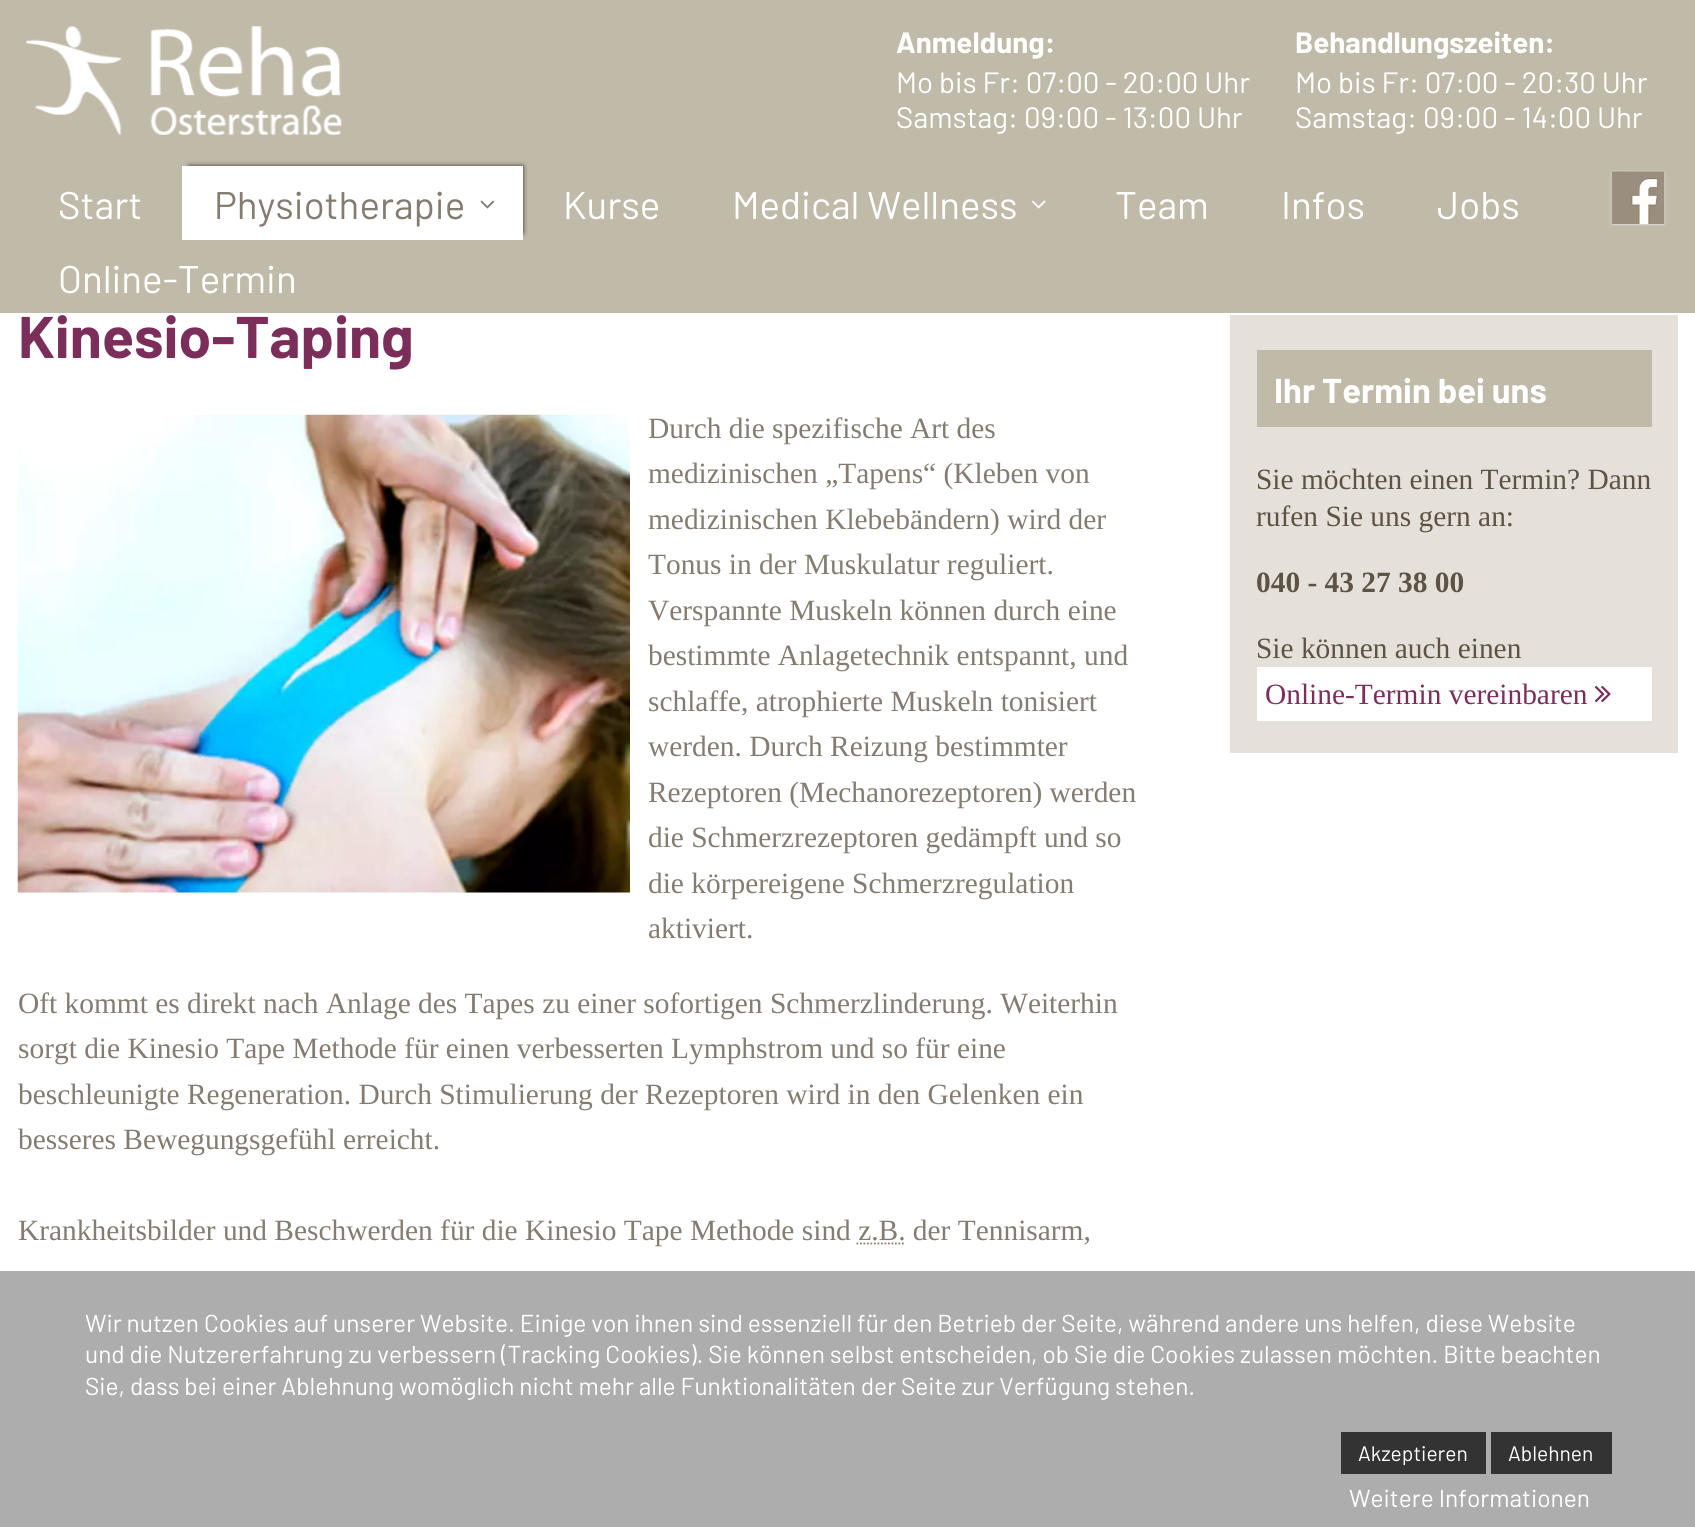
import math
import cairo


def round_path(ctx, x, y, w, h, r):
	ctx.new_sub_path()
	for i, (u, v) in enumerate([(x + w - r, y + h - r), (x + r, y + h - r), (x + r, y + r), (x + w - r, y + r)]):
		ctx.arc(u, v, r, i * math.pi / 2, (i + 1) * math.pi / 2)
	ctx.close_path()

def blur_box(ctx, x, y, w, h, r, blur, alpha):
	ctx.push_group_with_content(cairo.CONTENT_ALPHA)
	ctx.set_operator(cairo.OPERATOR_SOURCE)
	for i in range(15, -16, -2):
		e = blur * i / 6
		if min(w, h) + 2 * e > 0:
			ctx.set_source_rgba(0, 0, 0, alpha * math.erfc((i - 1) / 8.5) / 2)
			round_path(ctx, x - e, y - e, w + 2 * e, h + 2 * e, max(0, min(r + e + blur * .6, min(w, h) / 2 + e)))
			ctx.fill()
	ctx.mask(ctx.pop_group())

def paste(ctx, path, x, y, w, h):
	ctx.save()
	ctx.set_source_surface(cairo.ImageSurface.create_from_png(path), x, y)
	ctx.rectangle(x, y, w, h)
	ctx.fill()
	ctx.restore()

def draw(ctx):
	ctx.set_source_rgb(1, 1, 1)
	ctx.paint()
	ctx.set_source_rgb(0.753, 0.729, 0.663)
	ctx.rectangle(0, 0, 1695, 313)
	ctx.fill()
	paste(ctx, 'media/1.png', 26, 26, 316, 109)
	ctx.select_font_face('Barlow', cairo.FONT_SLANT_NORMAL, cairo.FONT_WEIGHT_BOLD)
	ctx.set_font_size(29.4)
	ctx.set_source_rgb(1, 1, 1)
	ctx.move_to(896, 53)
	ctx.show_text('Anmeldung:')
	ctx.select_font_face('Barlow')
	ctx.move_to(896, 93)
	ctx.show_text('Mo bis Fr: 07:00 - 20:00 Uhr')
	ctx.move_to(896, 128)
	ctx.show_text('Samstag: 09:00 - 13:00 Uhr')
	ctx.select_font_face('Barlow', cairo.FONT_SLANT_NORMAL, cairo.FONT_WEIGHT_BOLD)
	ctx.move_to(1295, 53)
	ctx.show_text('Behandlungszeiten:')
	ctx.select_font_face('Barlow')
	ctx.move_to(1295, 93)
	ctx.show_text('Mo bis Fr: 07:00 - 20:30 Uhr')
	ctx.move_to(1295, 128)
	ctx.show_text('Samstag: 09:00 - 14:00 Uhr')
	ctx.set_source_rgb(1, 1, 1)
	blur_box(ctx, 1612, 172, 52, 52, 0, 1, 1)
	paste(ctx, 'media/2.png', 1611, 171, 54, 53)
	ctx.set_font_size(38.5)
	ctx.set_source_rgb(1, 1, 1)
	ctx.move_to(58, 219)
	ctx.show_text('Start')
	ctx.set_source_rgb(0.22, 0.184, 0.137)
	blur_box(ctx, 189, 166, 334, 67, 0, 2.5, 1)
	ctx.set_source_rgb(1, 1, 1)
	ctx.rectangle(182, 166, 341, 74)
	ctx.fill()
	ctx.set_source_rgb(0.518, 0.486, 0.439)
	ctx.move_to(214, 219)
	ctx.show_text('Physiotherapie')
	paste(ctx, 'media/3.png', 480, 200, 15, 9)
	ctx.set_source_rgb(1, 1, 1)
	ctx.move_to(563, 219)
	ctx.show_text('Kurse')
	ctx.move_to(732, 219)
	ctx.show_text('Medical Wellness')
	paste(ctx, 'media/4.png', 1031, 200, 15, 9)
	for x, y, s in [
		(1115, 219, 'Team'),
		(1281, 219, 'Infos'),
		(1437, 219, 'Jobs'),
		(58, 293, 'Online-Termin'),
	]:
		ctx.move_to(x, y)
		ctx.show_text(s)
	ctx.select_font_face('Barlow', cairo.FONT_SLANT_NORMAL, cairo.FONT_WEIGHT_BOLD)
	ctx.set_font_size(58.75)
	ctx.set_source_rgb(0.486, 0.18, 0.357)
	ctx.move_to(18, 358)
	ctx.show_text('Kinesio-Taping')
	paste(ctx, 'media/5.png', 17, 414, 613, 479)
	ctx.select_font_face('Liberation Serif')
	ctx.set_font_size(29.4)
	ctx.set_source_rgb(0.518, 0.486, 0.439)
	for x, y, s in [
		(648, 438, 'Durch die spezifische Art des'),
		(648, 483, 'medizinischen „Tapens“ (Kleben von'),
		(648, 529, 'medizinischen Klebebändern) wird der'),
		(648, 574, 'Tonus in der Muskulatur reguliert.'),
		(648, 620, 'Verspannte Muskeln können durch eine'),
		(648, 665, 'bestimmte Anlagetechnik entspannt, und'),
		(648, 711, 'schlaffe, atrophierte Muskeln tonisiert'),
		(648, 756, 'werden. Durch Reizung bestimmter'),
		(648, 802, 'Rezeptoren (Mechanorezeptoren) werden'),
		(648, 847, 'die Schmerzrezeptoren gedämpft und so'),
		(648, 893, 'die körpereigene Schmerzregulation'),
		(648, 938, 'aktiviert.'),
		(18, 1013, 'Oft kommt es direkt nach Anlage des Tapes zu einer sofortigen Schmerzlinderung. Weiterhin'),
		(18, 1058, 'sorgt die Kinesio Tape Methode für einen verbesserten Lymphstrom und so für eine'),
		(18, 1104, 'beschleunigte Regeneration. Durch Stimulierung der Rezeptoren wird in den Gelenken ein'),
		(18, 1149, 'besseres Bewegungsgefühl erreicht.'),
		(18, 1240, 'Krankheitsbilder und Beschwerden für die Kinesio Tape Methode sind z.B. der Tennisarm,'),
	]:
		ctx.move_to(x, y)
		ctx.show_text(s)
	ctx.new_path()
	ctx.move_to(856.5, 1243.5)
	ctx.line_to(904, 1243.5)
	ctx.set_line_width(1.8)
	ctx.set_dash([1.75, 1.75])
	ctx.stroke()
	ctx.set_source_rgb(0.898, 0.878, 0.851)
	ctx.rectangle(1230, 315, 448, 438)
	ctx.fill()
	ctx.set_source_rgb(0.753, 0.729, 0.663)
	ctx.rectangle(1257, 350, 395, 77)
	ctx.fill()
	ctx.select_font_face('Barlow', cairo.FONT_SLANT_NORMAL, cairo.FONT_WEIGHT_BOLD)
	ctx.set_font_size(34.5)
	ctx.set_source_rgb(1, 1, 1)
	ctx.move_to(1274, 403)
	ctx.show_text('Ihr Termin bei uns')
	ctx.select_font_face('Liberation Serif')
	ctx.set_font_size(29.4)
	ctx.set_source_rgb(0.365, 0.325, 0.267)
	ctx.move_to(1256, 489)
	ctx.show_text('Sie möchten einen Termin? Dann')
	ctx.move_to(1256, 526)
	ctx.show_text('rufen Sie uns gern an:')
	ctx.select_font_face('Liberation Serif', cairo.FONT_SLANT_NORMAL, cairo.FONT_WEIGHT_BOLD)
	ctx.move_to(1256, 592)
	ctx.show_text('040 - 43 27 38 00')
	ctx.select_font_face('Liberation Serif')
	ctx.move_to(1256, 658)
	ctx.show_text('Sie können auch einen')
	ctx.set_source_rgb(1, 1, 1)
	ctx.rectangle(1257, 667, 395, 54)
	ctx.fill()
	ctx.set_source_rgb(0.486, 0.18, 0.357)
	ctx.move_to(1265, 704)
	ctx.show_text('Online-Termin vereinbaren')
	paste(ctx, 'media/6.png', 1594, 685, 17, 18)
	ctx.set_source_rgb(0.678, 0.678, 0.678)
	ctx.rectangle(0, 1271, 1695, 256)
	ctx.fill()
	ctx.select_font_face('Barlow')
	ctx.set_font_size(24.5)
	ctx.set_source_rgb(1, 1, 1)
	for x, y, s in [
		(85, 1332, 'Wir nutzen Cookies auf unserer Website. Einige von ihnen sind essenziell für den Betrieb der Seite, während andere uns helfen, diese Website'),
		(85, 1363, 'und die Nutzererfahrung zu verbessern (Tracking Cookies). Sie können selbst entscheiden, ob Sie die Cookies zulassen möchten. Bitte beachten'),
		(85, 1395, 'Sie, dass bei einer Ablehnung womöglich nicht mehr alle Funktionalitäten der Seite zur Verfügung stehen.'),
	]:
		ctx.move_to(x, y)
		ctx.show_text(s)
	ctx.set_source_rgb(0.2, 0.2, 0.2)
	ctx.rectangle(1341, 1432, 145, 42)
	ctx.fill()
	ctx.set_font_size(21)
	ctx.set_source_rgb(1, 1, 1)
	ctx.move_to(1358, 1461)
	ctx.show_text('Akzeptieren')
	ctx.set_source_rgb(0.2, 0.2, 0.2)
	ctx.rectangle(1491, 1432, 121, 42)
	ctx.fill()
	ctx.set_source_rgb(1, 1, 1)
	ctx.move_to(1508, 1461)
	ctx.show_text('Ablehnen')
	ctx.set_font_size(24.5)
	ctx.move_to(1349, 1507)
	ctx.show_text('Weitere Informationen')


surface = cairo.ImageSurface(cairo.FORMAT_RGB24, 1695, 1527)
ctx = cairo.Context(surface)
options = cairo.FontOptions()
options.set_hint_metrics(cairo.HINT_METRICS_OFF)
options.set_hint_style(cairo.HINT_STYLE_NONE)
ctx.set_font_options(options)
ctx.set_miter_limit(4)
draw(ctx)
surface.write_to_png('image.png')
